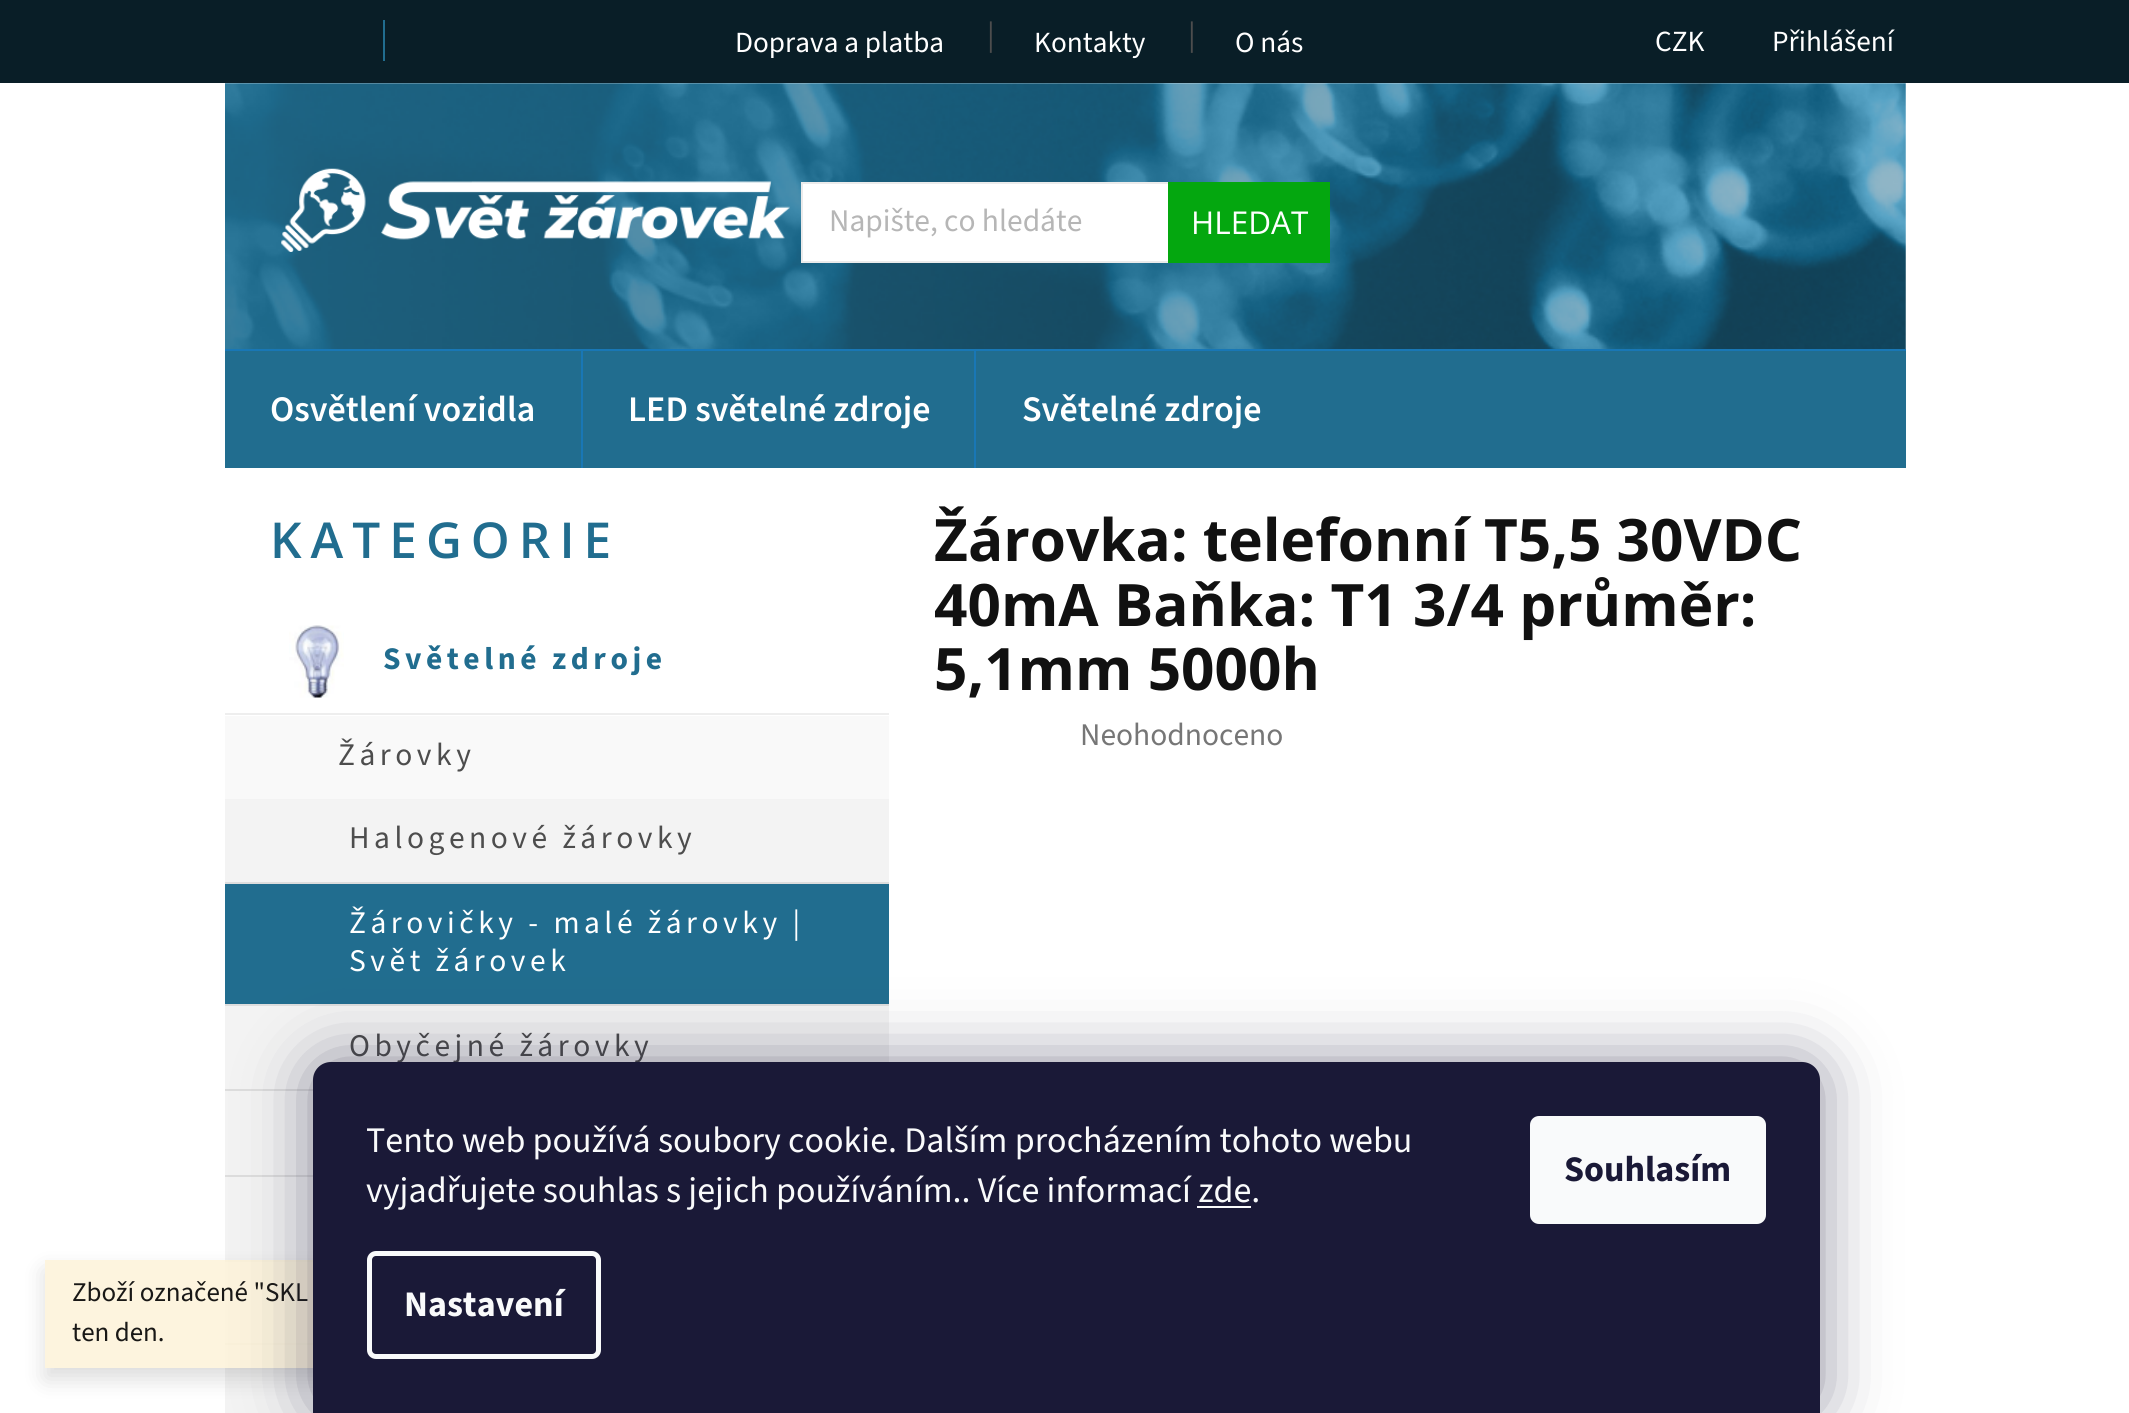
import math
import cairo


def write_spaced(ctx, x, y, s, letter, word):
	ctx.move_to(x, y)
	for ch in s:
		ctx.show_text(ch)
		ctx.rel_move_to(letter + word * (ch == ' '), 0)

def round_path(ctx, x, y, w, h, r):
	ctx.new_sub_path()
	for i, (u, v) in enumerate([(x + w - r, y + h - r), (x + r, y + h - r), (x + r, y + r), (x + w - r, y + r)]):
		ctx.arc(u, v, r, i * math.pi / 2, (i + 1) * math.pi / 2)
	ctx.close_path()

def blur_box(ctx, x, y, w, h, r, blur, alpha):
	ctx.push_group_with_content(cairo.CONTENT_ALPHA)
	ctx.set_operator(cairo.OPERATOR_SOURCE)
	for i in range(15, -16, -2):
		e = blur * i / 6
		if min(w, h) + 2 * e > 0:
			ctx.set_source_rgba(0, 0, 0, alpha * math.erfc((i - 1) / 8.5) / 2)
			round_path(ctx, x - e, y - e, w + 2 * e, h + 2 * e, max(0, min(r + e + blur * .6, min(w, h) / 2 + e)))
			ctx.fill()
	ctx.mask(ctx.pop_group())

def paste(ctx, path, x, y, w, h):
	ctx.save()
	ctx.set_source_surface(cairo.ImageSurface.create_from_png(path), x, y)
	ctx.rectangle(x, y, w, h)
	ctx.fill()
	ctx.restore()

def draw(ctx):
	ctx.set_source_rgb(1, 1, 1)
	ctx.paint()
	ctx.set_source_rgb(0.992, 0.957, 0.871)
	ctx.rectangle(45, 1260, 180, 108)
	ctx.fill()
	ctx.set_source_rgb(0.039, 0.118, 0.153)
	ctx.rectangle(0, 0, 2129, 83)
	ctx.fill()
	ctx.set_source_rgb(0.129, 0.427, 0.561)
	ctx.rectangle(383, 20, 2, 41)
	ctx.fill()
	ctx.select_font_face('Source Sans 3')
	ctx.set_font_size(29.25)
	ctx.set_source_rgb(1, 1, 1)
	ctx.move_to(735, 52)
	ctx.show_text('Doprava a platba')
	ctx.set_font_size(31.5)
	ctx.set_source_rgb(0.302, 0.302, 0.302)
	ctx.move_to(987, 45)
	ctx.show_text('|')
	ctx.set_font_size(29.25)
	ctx.set_source_rgb(1, 1, 1)
	ctx.move_to(1034, 52)
	ctx.show_text('Kontakty')
	ctx.set_font_size(31.5)
	ctx.set_source_rgb(0.302, 0.302, 0.302)
	ctx.move_to(1188, 45)
	ctx.show_text('|')
	ctx.set_font_size(29.25)
	ctx.set_source_rgb(1, 1, 1)
	for x, y, s in [
		(1235, 52, 'O nás'),
		(1655, 51, 'CZK'),
		(1772, 51, 'Přihlášení'),
	]:
		ctx.move_to(x, y)
		ctx.show_text(s)
	paste(ctx, 'media/1.png', 225, 83, 1681, 266)
	paste(ctx, 'media/2.png', 281, 168, 509, 84)
	ctx.rectangle(803, 184, 365, 77)
	ctx.fill()
	ctx.rectangle(802, 183, 527, 79)
	ctx.set_source_rgb(0.918, 0.918, 0.918)
	ctx.stroke()
	ctx.set_font_size(31.5)
	ctx.set_source_rgb(0.714, 0.714, 0.714)
	ctx.move_to(829, 231)
	ctx.show_text('Napište, co hledáte')
	ctx.set_source_rgb(0.016, 0.655, 0.059)
	ctx.rectangle(1168, 182, 162, 81)
	ctx.fill()
	ctx.select_font_face('Open Sans')
	ctx.set_source_rgb(1, 1, 1)
	ctx.move_to(1191, 234)
	ctx.show_text('HLEDAT')
	ctx.set_source_rgb(0.129, 0.427, 0.561)
	ctx.rectangle(225, 351, 1681, 117)
	ctx.fill()
	ctx.set_source_rgb(0.098, 0.467, 0.71)
	ctx.rectangle(225, 349, 1681, 2)
	ctx.fill()
	ctx.select_font_face('Source Sans 3 SemiBold')
	ctx.set_font_size(36)
	ctx.set_source_rgb(1, 1, 1)
	ctx.move_to(270, 421)
	ctx.show_text('Osvětlení vozidla')
	ctx.set_source_rgb(0.098, 0.467, 0.71)
	ctx.rectangle(581, 351, 2, 117)
	ctx.fill()
	ctx.set_source_rgb(1, 1, 1)
	ctx.move_to(628, 421)
	ctx.show_text('LED světelné zdroje')
	ctx.set_source_rgb(0.098, 0.467, 0.71)
	ctx.rectangle(974, 351, 2, 117)
	ctx.fill()
	ctx.set_source_rgb(1, 1, 1)
	ctx.move_to(1022, 421)
	ctx.show_text('Světelné zdroje')
	ctx.select_font_face('Open Sans SemiBold')
	ctx.set_font_size(49.5)
	ctx.set_source_rgb(0.129, 0.427, 0.561)
	write_spaced(ctx, 270, 558, 'KATEGORIE', 9, 0)
	ctx.set_source_rgb(0.933, 0.933, 0.933)
	ctx.rectangle(225, 713, 664, 2)
	ctx.fill()
	paste(ctx, 'media/3.png', 289, 625, 55, 73)
	ctx.select_font_face('Source Sans 3', cairo.FONT_SLANT_NORMAL, cairo.FONT_WEIGHT_BOLD)
	ctx.set_font_size(31.5)
	ctx.set_source_rgb(0.129, 0.427, 0.561)
	write_spaced(ctx, 383, 669, 'Světelné zdroje', 4.5, 0)
	ctx.set_source_rgb(0.973, 0.973, 0.973)
	ctx.rectangle(225, 716, 664, 83)
	ctx.fill()
	ctx.select_font_face('Source Sans 3')
	ctx.set_source_rgb(0.302, 0.302, 0.302)
	write_spaced(ctx, 338, 765, 'Žárovky', 4.5, 0)
	ctx.set_source_rgb(0.953, 0.953, 0.953)
	ctx.rectangle(225, 799, 664, 614)
	ctx.fill()
	ctx.set_source_rgb(0.988, 0.953, 0.867)
	ctx.rectangle(225, 1262, 88, 106)
	ctx.fill()
	ctx.set_source_rgb(0.867, 0.867, 0.867)
	ctx.rectangle(225, 882, 664, 2)
	ctx.fill()
	ctx.set_source_rgb(0.302, 0.302, 0.302)
	write_spaced(ctx, 349, 848, 'Halogenové žárovky', 4.5, 0)
	ctx.set_source_rgb(0.867, 0.867, 0.867)
	ctx.rectangle(225, 1004, 664, 2)
	ctx.fill()
	ctx.set_source_rgb(0.129, 0.427, 0.561)
	ctx.rectangle(225, 884, 664, 120)
	ctx.fill()
	ctx.set_source_rgb(1, 1, 1)
	write_spaced(ctx, 349, 933, 'Žárovičky - malé žárovky |', 4.5, 0)
	write_spaced(ctx, 349, 971, 'Svět žárovek', 4.5, 0)
	ctx.set_source_rgb(0.867, 0.867, 0.867)
	ctx.rectangle(225, 1089, 88, 2)
	ctx.fill()
	ctx.set_source_rgb(0.302, 0.302, 0.302)
	write_spaced(ctx, 349, 1056, 'Obyčejné žárovky', 4.5, 0)
	ctx.set_source_rgb(0.867, 0.867, 0.867)
	ctx.rectangle(225, 1175, 88, 2)
	ctx.fill()
	ctx.set_source_rgb(0.98, 0.945, 0.855)
	ctx.rectangle(225, 1260, 88, 2)
	ctx.rectangle(225, 1343, 88, 2)
	ctx.fill()
	ctx.select_font_face('Open Sans', cairo.FONT_SLANT_NORMAL, cairo.FONT_WEIGHT_BOLD)
	ctx.set_font_size(58.5)
	ctx.set_source_rgb(0.067, 0.067, 0.067)
	for x, y, s in [
		(934, 561, 'Žárovka: telefonní T5,5 30VDC'),
		(934, 626, '40mA Baňka: T1 3/4 průměr:'),
		(934, 690, '5,1mm 5000h'),
	]:
		ctx.move_to(x, y)
		ctx.show_text(s)
	ctx.select_font_face('Source Sans 3')
	ctx.set_font_size(31.5)
	ctx.set_source_rgb(0.463, 0.463, 0.463)
	ctx.move_to(1080, 745)
	ctx.show_text('Neohodnoceno')
	ctx.save()
	ctx.set_fill_rule(cairo.FILL_RULE_EVEN_ODD)
	ctx.new_path()
	ctx.move_to(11, 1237)
	ctx.line_to(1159, 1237)
	ctx.line_to(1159, 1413)
	ctx.line_to(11, 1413)
	ctx.close_path()
	ctx.move_to(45, 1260)
	ctx.line_to(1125, 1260)
	ctx.line_to(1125, 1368)
	ctx.line_to(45, 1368)
	ctx.close_path()
	ctx.clip()
	ctx.set_source_rgb(0, 0, 0)
	blur_box(ctx, 45, 1271, 1080, 108, 0, 11, 0.14)
	ctx.restore()
	ctx.set_font_size(27)
	ctx.set_source_rgb(0.098, 0.094, 0.086)
	ctx.move_to(72, 1301)
	ctx.show_text('Zboží označené "SKL')
	ctx.move_to(72, 1341)
	ctx.show_text('ten den.')
	ctx.set_source_rgb(0.106, 0.098, 0.224)
	blur_box(ctx, 313, 1062, 1507, 351, 18, 34, 0.5)
	ctx.set_source_rgb(0.102, 0.098, 0.216)
	ctx.new_path()
	ctx.move_to(331, 1062)
	ctx.line_to(1802, 1062)
	ctx.curve_to(1812, 1062, 1820, 1070, 1820, 1080)
	ctx.line_to(1820, 1413)
	ctx.line_to(313, 1413)
	ctx.line_to(313, 1080)
	ctx.curve_to(313, 1070, 321, 1062, 331, 1062)
	ctx.close_path()
	ctx.fill()
	ctx.set_font_size(36)
	ctx.set_source_rgb(0.973, 0.98, 0.984)
	ctx.move_to(366, 1152)
	ctx.show_text('Tento web používá soubory cookie. Dalším procházením tohoto webu')
	ctx.move_to(366, 1202)
	ctx.show_text('vyjadřujete souhlas s jejich používáním.. Více informací zde.')
	ctx.rectangle(1197, 1206, 54, 2)
	ctx.fill()
	round_path(ctx, 369.5, 1253.5, 229, 103, 6.5)
	ctx.set_line_width(5)
	ctx.stroke()
	ctx.select_font_face('Source Sans 3', cairo.FONT_SLANT_NORMAL, cairo.FONT_WEIGHT_BOLD)
	ctx.move_to(404, 1316)
	ctx.show_text('Nastavení')
	round_path(ctx, 1530, 1116, 236, 108, 9)
	ctx.fill()
	ctx.set_source_rgb(0.102, 0.098, 0.216)
	ctx.move_to(1564, 1181)
	ctx.show_text('Souhlasím')


surface = cairo.ImageSurface(cairo.FORMAT_RGB24, 2129, 1413)
ctx = cairo.Context(surface)
options = cairo.FontOptions()
options.set_hint_metrics(cairo.HINT_METRICS_OFF)
options.set_hint_style(cairo.HINT_STYLE_NONE)
ctx.set_font_options(options)
ctx.set_miter_limit(4)
draw(ctx)
surface.write_to_png('image.png')
